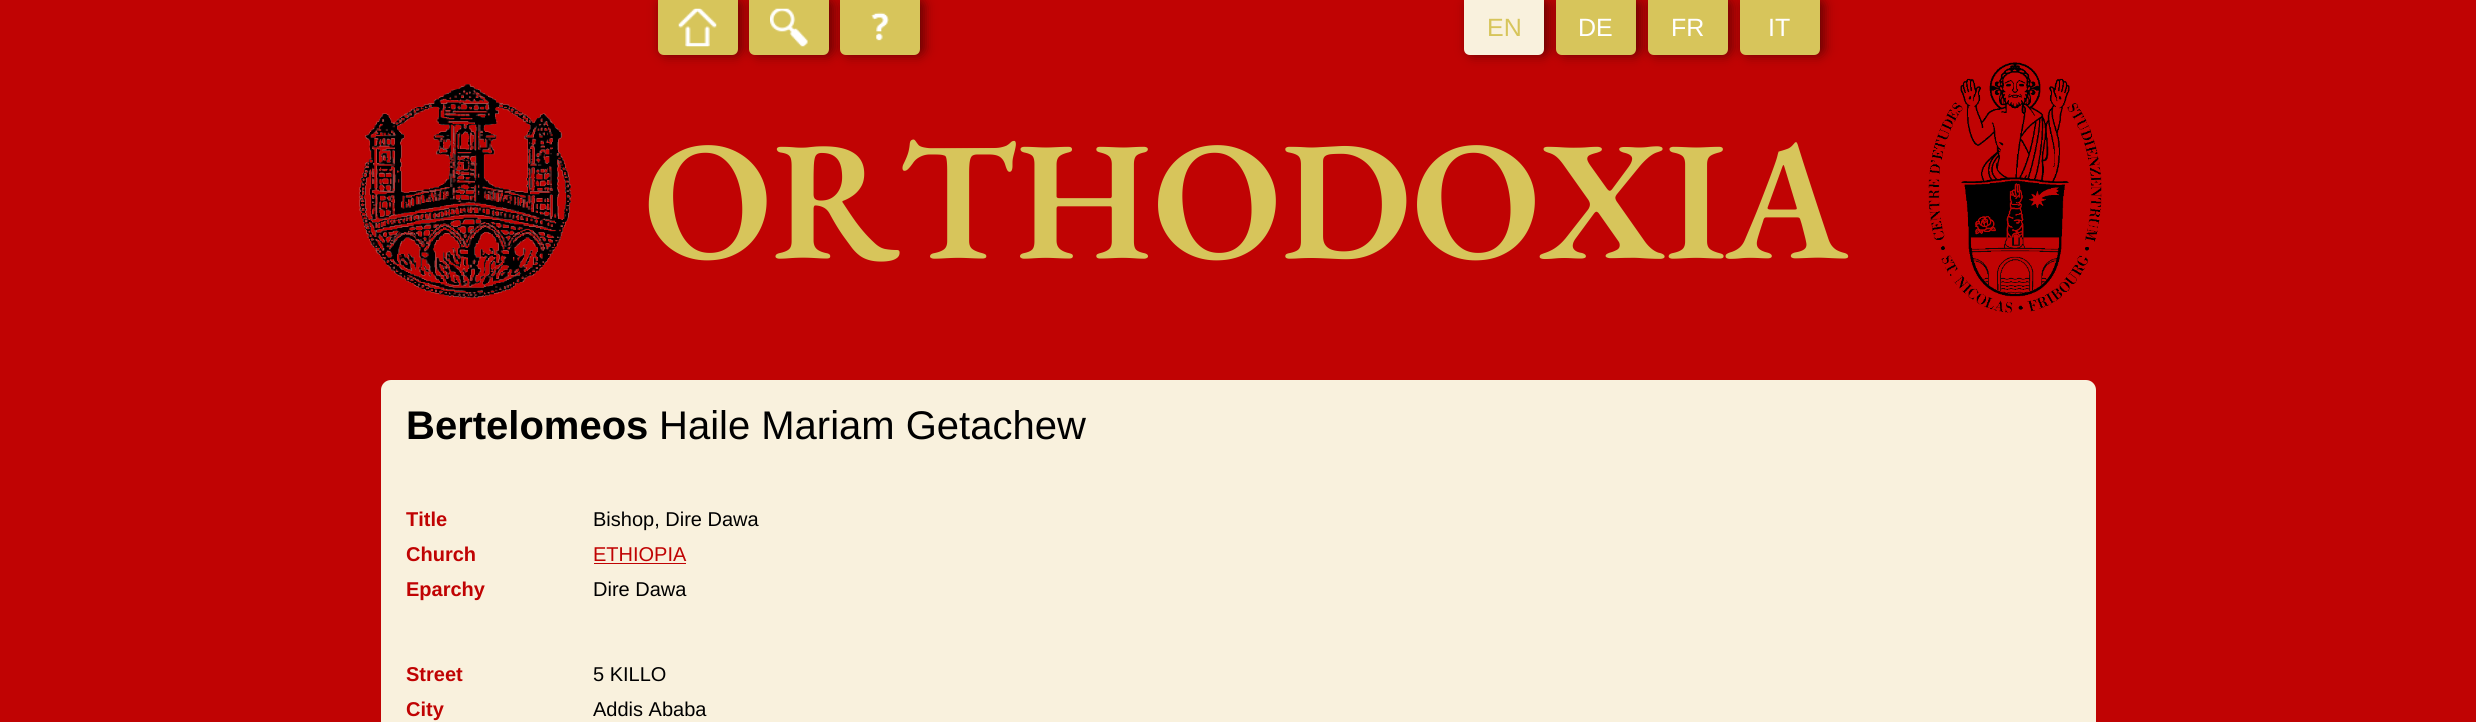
import math
import cairo


def round_path(ctx, x, y, w, h, r):
	ctx.new_sub_path()
	for i, (u, v) in enumerate([(x + w - r, y + h - r), (x + r, y + h - r), (x + r, y + r), (x + w - r, y + r)]):
		ctx.arc(u, v, r, i * math.pi / 2, (i + 1) * math.pi / 2)
	ctx.close_path()

def blur_box(ctx, x, y, w, h, r, blur, alpha):
	ctx.push_group_with_content(cairo.CONTENT_ALPHA)
	ctx.set_operator(cairo.OPERATOR_SOURCE)
	for i in range(15, -16, -2):
		e = blur * i / 6
		if min(w, h) + 2 * e > 0:
			ctx.set_source_rgba(0, 0, 0, alpha * math.erfc((i - 1) / 8.5) / 2)
			round_path(ctx, x - e, y - e, w + 2 * e, h + 2 * e, max(0, min(r + e + blur * .6, min(w, h) / 2 + e)))
			ctx.fill()
	ctx.mask(ctx.pop_group())

def paste(ctx, path, x, y, w, h):
	ctx.save()
	ctx.set_source_surface(cairo.ImageSurface.create_from_png(path), x, y)
	ctx.rectangle(x, y, w, h)
	ctx.fill()
	ctx.restore()

def draw(ctx):
	ctx.set_source_rgb(0.753, 0.012, 0.012)
	ctx.paint()
	ctx.set_source_rgb(0.388, 0.008, 0.008)
	blur_box(ctx, 661, 0, 80, 55, 6, 6, 1)
	ctx.set_source_rgb(0.843, 0.773, 0.357)
	ctx.new_path()
	ctx.move_to(658, 0)
	ctx.line_to(738, 0)
	ctx.line_to(738, 49)
	ctx.curve_to(738, 52.5, 735.5, 55, 732, 55)
	ctx.line_to(664, 55)
	ctx.curve_to(660.5, 55, 658, 52.5, 658, 49)
	ctx.close_path()
	ctx.fill()
	paste(ctx, 'media/1.png', 678, 8, 39, 39)
	ctx.set_source_rgb(0.388, 0.008, 0.008)
	blur_box(ctx, 753, 0, 80, 55, 6, 6, 1)
	ctx.set_source_rgb(0.843, 0.773, 0.357)
	ctx.new_path()
	ctx.move_to(749, 0)
	ctx.line_to(829, 0)
	ctx.line_to(829, 49)
	ctx.curve_to(829, 52.5, 826.5, 55, 823, 55)
	ctx.line_to(755, 55)
	ctx.curve_to(751.5, 55, 749, 52.5, 749, 49)
	ctx.close_path()
	ctx.fill()
	paste(ctx, 'media/2.png', 770, 8, 38, 39)
	ctx.set_source_rgb(0.388, 0.008, 0.008)
	blur_box(ctx, 844, 0, 80, 55, 6, 6, 1)
	ctx.set_source_rgb(0.843, 0.773, 0.357)
	ctx.new_path()
	ctx.move_to(840, 0)
	ctx.line_to(920, 0)
	ctx.line_to(920, 49)
	ctx.curve_to(920, 52.5, 917.5, 55, 914, 55)
	ctx.line_to(846, 55)
	ctx.curve_to(842.5, 55, 840, 52.5, 840, 49)
	ctx.close_path()
	ctx.fill()
	paste(ctx, 'media/3.png', 871, 12, 18, 29)
	ctx.set_source_rgb(0.388, 0.008, 0.008)
	blur_box(ctx, 1468, 0, 80, 55, 6, 6, 1)
	ctx.set_source_rgb(0.976, 0.945, 0.867)
	ctx.new_path()
	ctx.move_to(1464, 0)
	ctx.line_to(1544, 0)
	ctx.line_to(1544, 49)
	ctx.curve_to(1544, 52.5, 1541.5, 55, 1538, 55)
	ctx.line_to(1470, 55)
	ctx.curve_to(1466.5, 55, 1464, 52.5, 1464, 49)
	ctx.close_path()
	ctx.fill()
	ctx.select_font_face('Liberation Sans')
	ctx.set_font_size(25)
	ctx.set_source_rgb(0.843, 0.773, 0.357)
	ctx.move_to(1487, 36)
	ctx.show_text('EN')
	ctx.set_source_rgb(0.388, 0.008, 0.008)
	blur_box(ctx, 1560, 0, 80, 55, 6, 6, 1)
	ctx.set_source_rgb(0.843, 0.773, 0.357)
	ctx.new_path()
	ctx.move_to(1556, 0)
	ctx.line_to(1636, 0)
	ctx.line_to(1636, 49)
	ctx.curve_to(1636, 52.5, 1633.5, 55, 1630, 55)
	ctx.line_to(1562, 55)
	ctx.curve_to(1558.5, 55, 1556, 52.5, 1556, 49)
	ctx.close_path()
	ctx.fill()
	ctx.set_source_rgb(1, 1, 1)
	ctx.move_to(1578, 36)
	ctx.show_text('DE')
	ctx.set_source_rgb(0.388, 0.008, 0.008)
	blur_box(ctx, 1651, 0, 80, 55, 6, 6, 1)
	ctx.set_source_rgb(0.843, 0.773, 0.357)
	ctx.new_path()
	ctx.move_to(1648, 0)
	ctx.line_to(1728, 0)
	ctx.line_to(1728, 49)
	ctx.curve_to(1728, 52.5, 1725.5, 55, 1722, 55)
	ctx.line_to(1654, 55)
	ctx.curve_to(1650.5, 55, 1648, 52.5, 1648, 49)
	ctx.close_path()
	ctx.fill()
	ctx.set_source_rgb(1, 1, 1)
	ctx.move_to(1671, 36)
	ctx.show_text('FR')
	ctx.set_source_rgb(0.388, 0.008, 0.008)
	blur_box(ctx, 1744, 0, 80, 55, 6, 6, 1)
	ctx.set_source_rgb(0.843, 0.773, 0.357)
	ctx.new_path()
	ctx.move_to(1740, 0)
	ctx.line_to(1820, 0)
	ctx.line_to(1820, 49)
	ctx.curve_to(1820, 52.5, 1817.5, 55, 1814, 55)
	ctx.line_to(1746, 55)
	ctx.curve_to(1742.5, 55, 1740, 52.5, 1740, 49)
	ctx.close_path()
	ctx.fill()
	ctx.set_source_rgb(1, 1, 1)
	ctx.move_to(1768, 36)
	ctx.show_text('IT')
	paste(ctx, 'media/4.png', 359, 84, 213, 214)
	ctx.select_font_face('EB Garamond SemiBold')
	ctx.set_font_size(170)
	ctx.set_source_rgb(0.843, 0.773, 0.357)
	ctx.move_to(643, 258)
	ctx.show_text('ORTHODOXIA')
	paste(ctx, 'media/5.png', 1928, 62, 174, 251)
	ctx.set_source_rgb(0.976, 0.945, 0.867)
	round_path(ctx, 381, 380, 1715, 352, 10)
	ctx.fill()
	ctx.select_font_face('Liberation Sans', cairo.FONT_SLANT_NORMAL, cairo.FONT_WEIGHT_BOLD)
	ctx.set_font_size(40)
	ctx.set_source_rgb(0, 0, 0)
	ctx.move_to(406, 439)
	ctx.show_text('Bertelomeos')
	ctx.select_font_face('Liberation Sans')
	ctx.move_to(659, 439)
	ctx.show_text('Haile Mariam Getachew')
	ctx.select_font_face('Liberation Sans', cairo.FONT_SLANT_NORMAL, cairo.FONT_WEIGHT_BOLD)
	ctx.set_font_size(20)
	ctx.set_source_rgb(0.753, 0.012, 0.012)
	ctx.move_to(406, 526)
	ctx.show_text('Title')
	ctx.select_font_face('Liberation Sans')
	ctx.set_source_rgb(0, 0, 0)
	ctx.move_to(593, 526)
	ctx.show_text('Bishop, Dire Dawa')
	ctx.select_font_face('Liberation Sans', cairo.FONT_SLANT_NORMAL, cairo.FONT_WEIGHT_BOLD)
	ctx.set_source_rgb(0.753, 0.012, 0.012)
	ctx.move_to(406, 561)
	ctx.show_text('Church')
	ctx.select_font_face('Liberation Sans')
	ctx.move_to(593, 561)
	ctx.show_text('ETHIOPIA')
	ctx.rectangle(594, 563, 92, 1)
	ctx.fill()
	ctx.select_font_face('Liberation Sans', cairo.FONT_SLANT_NORMAL, cairo.FONT_WEIGHT_BOLD)
	ctx.move_to(406, 596)
	ctx.show_text('Eparchy')
	ctx.select_font_face('Liberation Sans')
	ctx.set_source_rgb(0, 0, 0)
	ctx.move_to(593, 596)
	ctx.show_text('Dire Dawa')
	ctx.select_font_face('Liberation Sans', cairo.FONT_SLANT_NORMAL, cairo.FONT_WEIGHT_BOLD)
	ctx.set_source_rgb(0.753, 0.012, 0.012)
	ctx.move_to(406, 681)
	ctx.show_text('Street')
	ctx.select_font_face('Liberation Sans')
	ctx.set_source_rgb(0, 0, 0)
	ctx.move_to(593, 681)
	ctx.show_text('5 KILLO')
	ctx.select_font_face('Liberation Sans', cairo.FONT_SLANT_NORMAL, cairo.FONT_WEIGHT_BOLD)
	ctx.set_source_rgb(0.753, 0.012, 0.012)
	ctx.move_to(406, 716)
	ctx.show_text('City')
	ctx.select_font_face('Liberation Sans')
	ctx.set_source_rgb(0, 0, 0)
	ctx.move_to(593, 716)
	ctx.show_text('Addis Ababa')


surface = cairo.ImageSurface(cairo.FORMAT_RGB24, 2476, 722)
ctx = cairo.Context(surface)
options = cairo.FontOptions()
options.set_hint_metrics(cairo.HINT_METRICS_OFF)
options.set_hint_style(cairo.HINT_STYLE_NONE)
ctx.set_font_options(options)
ctx.set_miter_limit(4)
draw(ctx)
surface.write_to_png('image.png')
